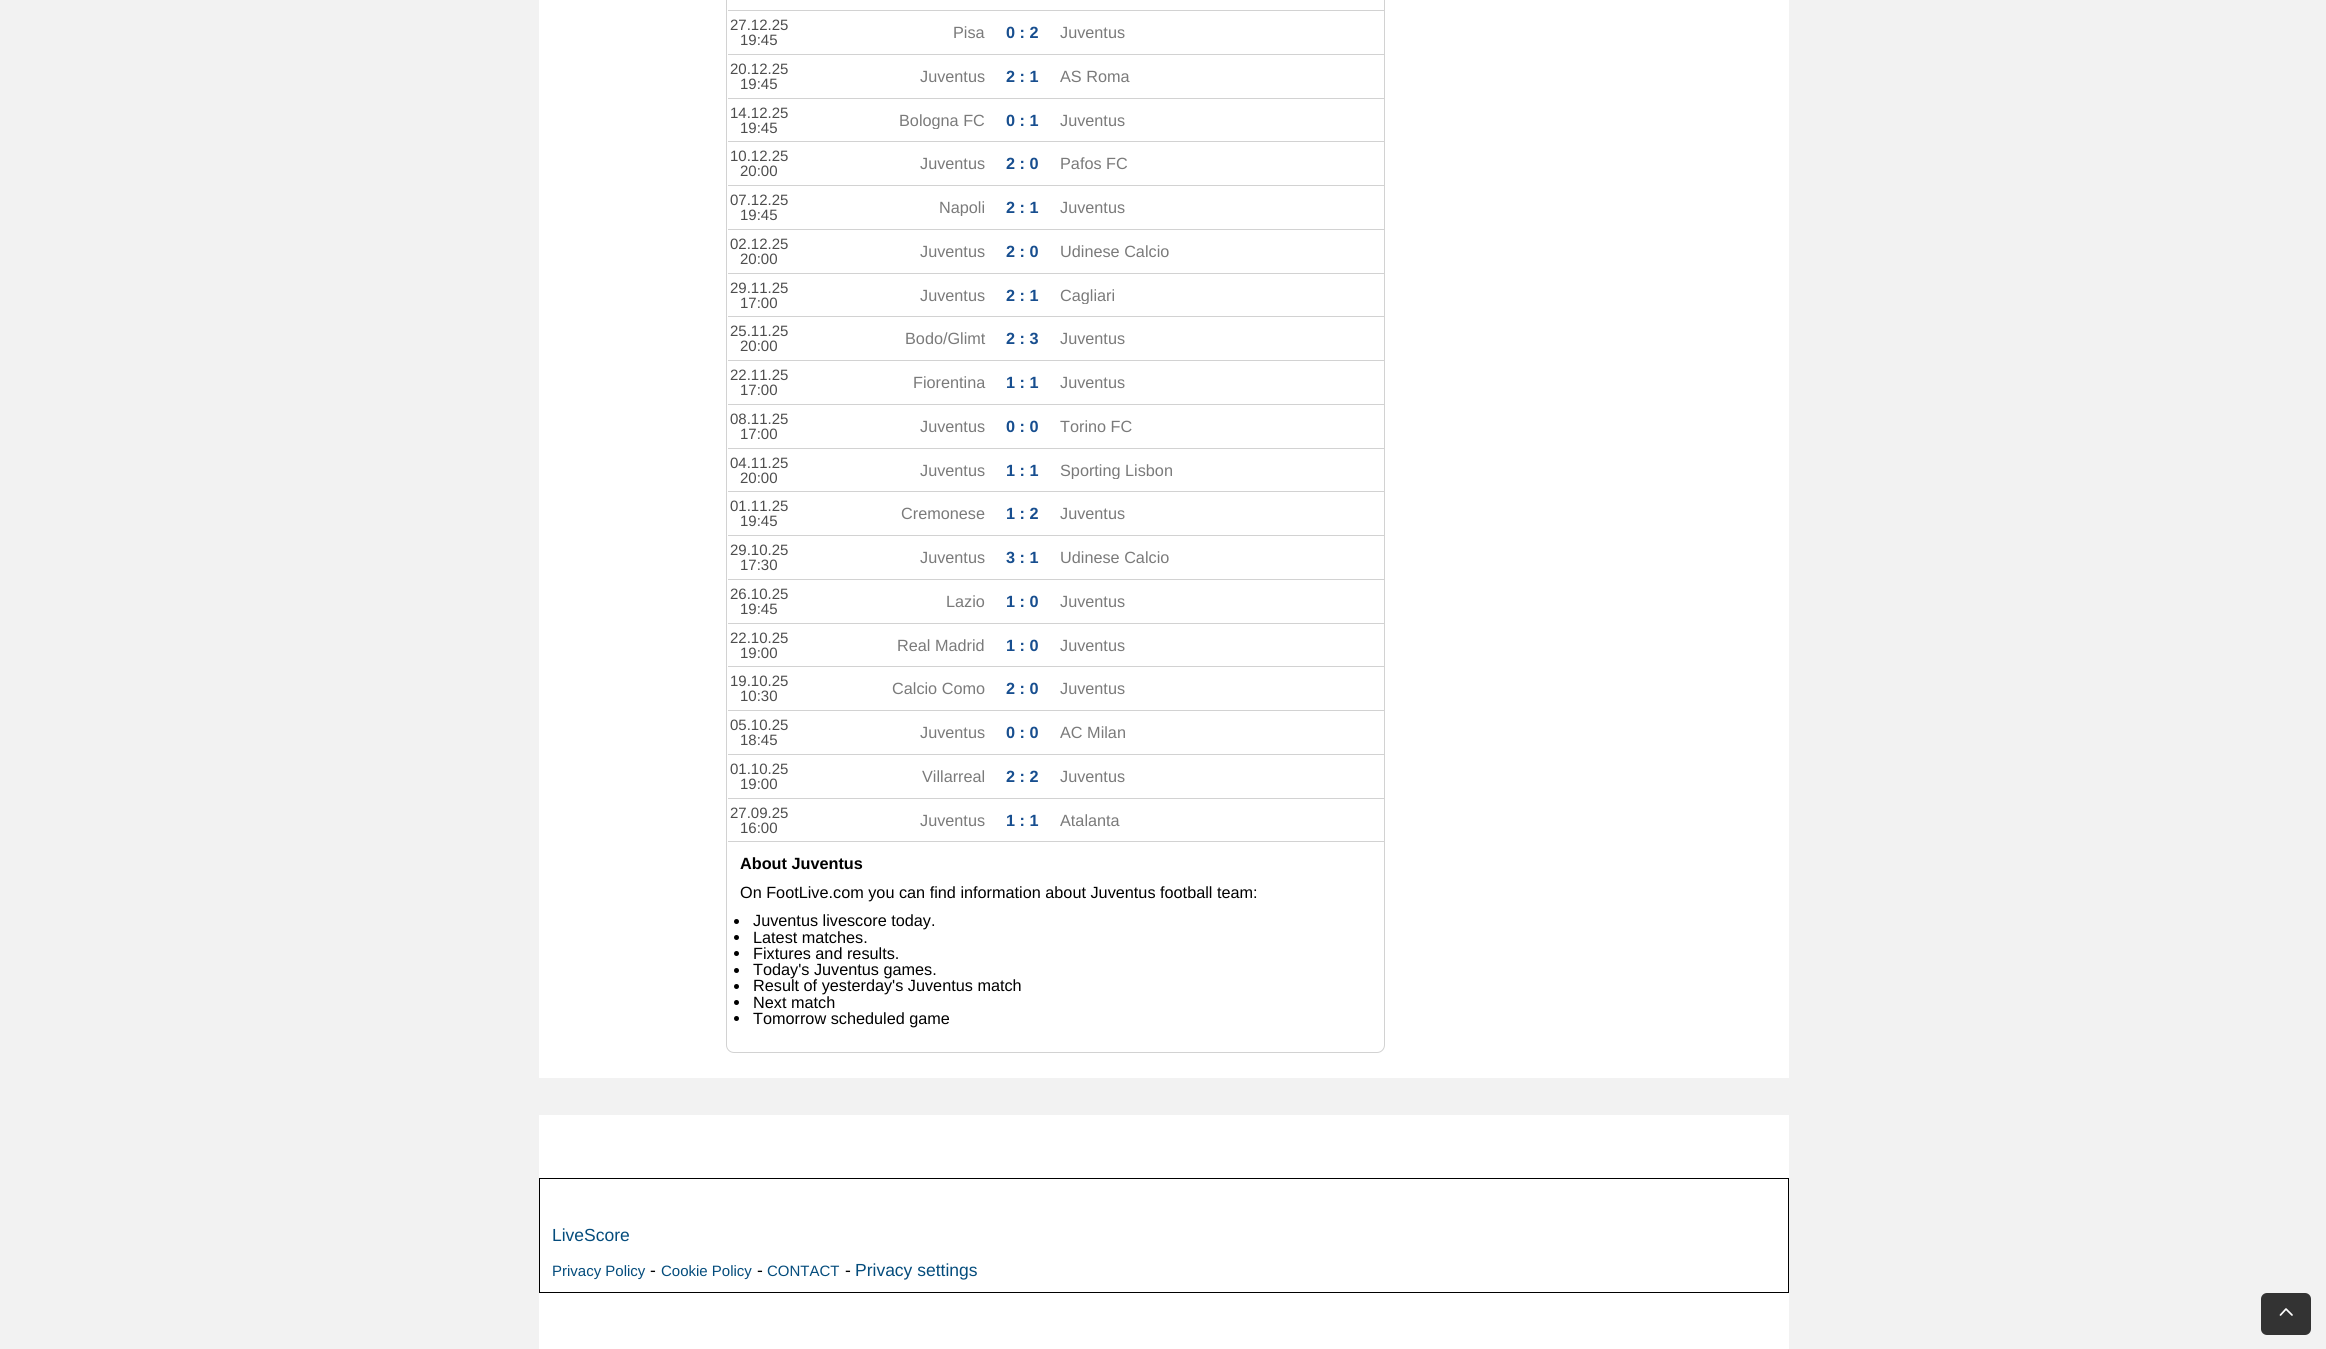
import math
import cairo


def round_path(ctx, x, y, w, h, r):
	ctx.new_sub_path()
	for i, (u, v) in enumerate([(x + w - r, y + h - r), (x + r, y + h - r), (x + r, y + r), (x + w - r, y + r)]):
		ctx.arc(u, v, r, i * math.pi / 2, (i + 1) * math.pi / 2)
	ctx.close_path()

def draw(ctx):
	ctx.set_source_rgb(0.949, 0.949, 0.949)
	ctx.paint()
	ctx.set_source_rgb(1, 1, 1)
	ctx.rectangle(539, 0, 1250, 1349)
	ctx.fill()
	round_path(ctx, 726.5, -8.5, 658, 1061, 7.5)
	ctx.set_source_rgb(0.824, 0.824, 0.824)
	ctx.set_line_width(1)
	ctx.stroke()
	ctx.rectangle(728, 10, 657, 1)
	ctx.fill()
	ctx.rectangle(728, 54, 657, 1)
	ctx.fill()
	ctx.select_font_face('Liberation Sans')
	ctx.set_font_size(15)
	ctx.set_source_rgb(0.302, 0.302, 0.302)
	ctx.move_to(730, 30)
	ctx.show_text('27.12.25')
	ctx.move_to(740, 45)
	ctx.show_text('19:45')
	ctx.set_font_size(16.25)
	ctx.set_source_rgb(0.478, 0.478, 0.478)
	ctx.move_to(953, 38)
	ctx.show_text('Pisa')
	ctx.select_font_face('Liberation Sans', cairo.FONT_SLANT_NORMAL, cairo.FONT_WEIGHT_BOLD)
	ctx.set_source_rgb(0.09, 0.306, 0.561)
	ctx.move_to(1006, 38)
	ctx.show_text('0 : 2')
	ctx.select_font_face('Liberation Sans')
	ctx.set_source_rgb(0.478, 0.478, 0.478)
	ctx.move_to(1060, 38)
	ctx.show_text('Juventus')
	ctx.set_source_rgb(0.824, 0.824, 0.824)
	ctx.rectangle(728, 98, 657, 1)
	ctx.fill()
	ctx.set_font_size(15)
	ctx.set_source_rgb(0.302, 0.302, 0.302)
	ctx.move_to(730, 74)
	ctx.show_text('20.12.25')
	ctx.move_to(740, 89)
	ctx.show_text('19:45')
	ctx.set_font_size(16.25)
	ctx.set_source_rgb(0.478, 0.478, 0.478)
	ctx.move_to(920, 82)
	ctx.show_text('Juventus')
	ctx.select_font_face('Liberation Sans', cairo.FONT_SLANT_NORMAL, cairo.FONT_WEIGHT_BOLD)
	ctx.set_source_rgb(0.09, 0.306, 0.561)
	ctx.move_to(1006, 82)
	ctx.show_text('2 : 1')
	ctx.select_font_face('Liberation Sans')
	ctx.set_source_rgb(0.478, 0.478, 0.478)
	ctx.move_to(1060, 82)
	ctx.show_text('AS Roma')
	ctx.set_source_rgb(0.824, 0.824, 0.824)
	ctx.rectangle(728, 141, 657, 1)
	ctx.fill()
	ctx.set_font_size(15)
	ctx.set_source_rgb(0.302, 0.302, 0.302)
	ctx.move_to(730, 118)
	ctx.show_text('14.12.25')
	ctx.move_to(740, 133)
	ctx.show_text('19:45')
	ctx.save()
	ctx.rectangle(794, 113, 191, 16)
	ctx.clip()
	ctx.set_font_size(16.25)
	ctx.set_source_rgb(0.478, 0.478, 0.478)
	ctx.move_to(899, 126)
	ctx.show_text('Bologna FC')
	ctx.restore()
	ctx.select_font_face('Liberation Sans', cairo.FONT_SLANT_NORMAL, cairo.FONT_WEIGHT_BOLD)
	ctx.set_font_size(16.25)
	ctx.set_source_rgb(0.09, 0.306, 0.561)
	ctx.move_to(1006, 126)
	ctx.show_text('0 : 1')
	ctx.select_font_face('Liberation Sans')
	ctx.set_source_rgb(0.478, 0.478, 0.478)
	ctx.move_to(1060, 126)
	ctx.show_text('Juventus')
	ctx.set_source_rgb(0.824, 0.824, 0.824)
	ctx.rectangle(728, 185, 657, 1)
	ctx.fill()
	ctx.set_font_size(15)
	ctx.set_source_rgb(0.302, 0.302, 0.302)
	ctx.move_to(730, 161)
	ctx.show_text('10.12.25')
	ctx.move_to(740, 176)
	ctx.show_text('20:00')
	ctx.set_font_size(16.25)
	ctx.set_source_rgb(0.478, 0.478, 0.478)
	ctx.move_to(920, 169)
	ctx.show_text('Juventus')
	ctx.select_font_face('Liberation Sans', cairo.FONT_SLANT_NORMAL, cairo.FONT_WEIGHT_BOLD)
	ctx.set_source_rgb(0.09, 0.306, 0.561)
	ctx.move_to(1006, 169)
	ctx.show_text('2 : 0')
	ctx.select_font_face('Liberation Sans')
	ctx.set_source_rgb(0.478, 0.478, 0.478)
	ctx.move_to(1060, 169)
	ctx.show_text('Pafos FC')
	ctx.set_source_rgb(0.824, 0.824, 0.824)
	ctx.rectangle(728, 229, 657, 1)
	ctx.fill()
	ctx.set_font_size(15)
	ctx.set_source_rgb(0.302, 0.302, 0.302)
	ctx.move_to(730, 205)
	ctx.show_text('07.12.25')
	ctx.move_to(740, 220)
	ctx.show_text('19:45')
	ctx.save()
	ctx.rectangle(794, 200, 191, 16)
	ctx.clip()
	ctx.set_font_size(16.25)
	ctx.set_source_rgb(0.478, 0.478, 0.478)
	ctx.move_to(939, 213)
	ctx.show_text('Napoli')
	ctx.restore()
	ctx.select_font_face('Liberation Sans', cairo.FONT_SLANT_NORMAL, cairo.FONT_WEIGHT_BOLD)
	ctx.set_font_size(16.25)
	ctx.set_source_rgb(0.09, 0.306, 0.561)
	ctx.move_to(1006, 213)
	ctx.show_text('2 : 1')
	ctx.select_font_face('Liberation Sans')
	ctx.set_source_rgb(0.478, 0.478, 0.478)
	ctx.move_to(1060, 213)
	ctx.show_text('Juventus')
	ctx.set_source_rgb(0.824, 0.824, 0.824)
	ctx.rectangle(728, 273, 657, 1)
	ctx.fill()
	ctx.set_font_size(15)
	ctx.set_source_rgb(0.302, 0.302, 0.302)
	ctx.move_to(730, 249)
	ctx.show_text('02.12.25')
	ctx.move_to(740, 264)
	ctx.show_text('20:00')
	ctx.set_font_size(16.25)
	ctx.set_source_rgb(0.478, 0.478, 0.478)
	ctx.move_to(920, 257)
	ctx.show_text('Juventus')
	ctx.select_font_face('Liberation Sans', cairo.FONT_SLANT_NORMAL, cairo.FONT_WEIGHT_BOLD)
	ctx.set_source_rgb(0.09, 0.306, 0.561)
	ctx.move_to(1006, 257)
	ctx.show_text('2 : 0')
	ctx.select_font_face('Liberation Sans')
	ctx.set_source_rgb(0.478, 0.478, 0.478)
	ctx.move_to(1060, 257)
	ctx.show_text('Udinese Calcio')
	ctx.set_source_rgb(0.824, 0.824, 0.824)
	ctx.rectangle(728, 316, 657, 1)
	ctx.fill()
	ctx.set_font_size(15)
	ctx.set_source_rgb(0.302, 0.302, 0.302)
	ctx.move_to(730, 293)
	ctx.show_text('29.11.25')
	ctx.move_to(740, 308)
	ctx.show_text('17:00')
	ctx.set_font_size(16.25)
	ctx.set_source_rgb(0.478, 0.478, 0.478)
	ctx.move_to(920, 301)
	ctx.show_text('Juventus')
	ctx.select_font_face('Liberation Sans', cairo.FONT_SLANT_NORMAL, cairo.FONT_WEIGHT_BOLD)
	ctx.set_source_rgb(0.09, 0.306, 0.561)
	ctx.move_to(1006, 301)
	ctx.show_text('2 : 1')
	ctx.save()
	ctx.rectangle(1060, 288, 191, 16)
	ctx.clip()
	ctx.select_font_face('Liberation Sans')
	ctx.set_source_rgb(0.478, 0.478, 0.478)
	ctx.move_to(1060, 301)
	ctx.show_text('Cagliari')
	ctx.restore()
	ctx.set_source_rgb(0.824, 0.824, 0.824)
	ctx.rectangle(728, 360, 657, 1)
	ctx.fill()
	ctx.select_font_face('Liberation Sans')
	ctx.set_font_size(15)
	ctx.set_source_rgb(0.302, 0.302, 0.302)
	ctx.move_to(730, 336)
	ctx.show_text('25.11.25')
	ctx.move_to(740, 351)
	ctx.show_text('20:00')
	ctx.set_font_size(16.25)
	ctx.set_source_rgb(0.478, 0.478, 0.478)
	ctx.move_to(905, 344)
	ctx.show_text('Bodo/Glimt')
	ctx.select_font_face('Liberation Sans', cairo.FONT_SLANT_NORMAL, cairo.FONT_WEIGHT_BOLD)
	ctx.set_source_rgb(0.09, 0.306, 0.561)
	ctx.move_to(1006, 344)
	ctx.show_text('2 : 3')
	ctx.select_font_face('Liberation Sans')
	ctx.set_source_rgb(0.478, 0.478, 0.478)
	ctx.move_to(1060, 344)
	ctx.show_text('Juventus')
	ctx.set_source_rgb(0.824, 0.824, 0.824)
	ctx.rectangle(728, 404, 657, 1)
	ctx.fill()
	ctx.set_font_size(15)
	ctx.set_source_rgb(0.302, 0.302, 0.302)
	ctx.move_to(730, 380)
	ctx.show_text('22.11.25')
	ctx.move_to(740, 395)
	ctx.show_text('17:00')
	ctx.set_font_size(16.25)
	ctx.set_source_rgb(0.478, 0.478, 0.478)
	ctx.move_to(913, 388)
	ctx.show_text('Fiorentina')
	ctx.select_font_face('Liberation Sans', cairo.FONT_SLANT_NORMAL, cairo.FONT_WEIGHT_BOLD)
	ctx.set_source_rgb(0.09, 0.306, 0.561)
	ctx.move_to(1006, 388)
	ctx.show_text('1 : 1')
	ctx.select_font_face('Liberation Sans')
	ctx.set_source_rgb(0.478, 0.478, 0.478)
	ctx.move_to(1060, 388)
	ctx.show_text('Juventus')
	ctx.set_source_rgb(0.824, 0.824, 0.824)
	ctx.rectangle(728, 448, 657, 1)
	ctx.fill()
	ctx.set_font_size(15)
	ctx.set_source_rgb(0.302, 0.302, 0.302)
	ctx.move_to(730, 424)
	ctx.show_text('08.11.25')
	ctx.move_to(740, 439)
	ctx.show_text('17:00')
	ctx.set_font_size(16.25)
	ctx.set_source_rgb(0.478, 0.478, 0.478)
	ctx.move_to(920, 432)
	ctx.show_text('Juventus')
	ctx.select_font_face('Liberation Sans', cairo.FONT_SLANT_NORMAL, cairo.FONT_WEIGHT_BOLD)
	ctx.set_source_rgb(0.09, 0.306, 0.561)
	ctx.move_to(1006, 432)
	ctx.show_text('0 : 0')
	ctx.select_font_face('Liberation Sans')
	ctx.set_source_rgb(0.478, 0.478, 0.478)
	ctx.move_to(1060, 432)
	ctx.show_text('Torino FC')
	ctx.set_source_rgb(0.824, 0.824, 0.824)
	ctx.rectangle(728, 491, 657, 1)
	ctx.fill()
	ctx.set_font_size(15)
	ctx.set_source_rgb(0.302, 0.302, 0.302)
	ctx.move_to(730, 468)
	ctx.show_text('04.11.25')
	ctx.move_to(740, 483)
	ctx.show_text('20:00')
	ctx.set_font_size(16.25)
	ctx.set_source_rgb(0.478, 0.478, 0.478)
	ctx.move_to(920, 476)
	ctx.show_text('Juventus')
	ctx.select_font_face('Liberation Sans', cairo.FONT_SLANT_NORMAL, cairo.FONT_WEIGHT_BOLD)
	ctx.set_source_rgb(0.09, 0.306, 0.561)
	ctx.move_to(1006, 476)
	ctx.show_text('1 : 1')
	ctx.save()
	ctx.rectangle(1060, 463, 191, 16)
	ctx.clip()
	ctx.select_font_face('Liberation Sans')
	ctx.set_source_rgb(0.478, 0.478, 0.478)
	ctx.move_to(1060, 476)
	ctx.show_text('Sporting Lisbon')
	ctx.restore()
	ctx.set_source_rgb(0.824, 0.824, 0.824)
	ctx.rectangle(728, 535, 657, 1)
	ctx.fill()
	ctx.select_font_face('Liberation Sans')
	ctx.set_font_size(15)
	ctx.set_source_rgb(0.302, 0.302, 0.302)
	ctx.move_to(730, 511)
	ctx.show_text('01.11.25')
	ctx.move_to(740, 526)
	ctx.show_text('19:45')
	ctx.set_font_size(16.25)
	ctx.set_source_rgb(0.478, 0.478, 0.478)
	ctx.move_to(901, 519)
	ctx.show_text('Cremonese')
	ctx.select_font_face('Liberation Sans', cairo.FONT_SLANT_NORMAL, cairo.FONT_WEIGHT_BOLD)
	ctx.set_source_rgb(0.09, 0.306, 0.561)
	ctx.move_to(1006, 519)
	ctx.show_text('1 : 2')
	ctx.select_font_face('Liberation Sans')
	ctx.set_source_rgb(0.478, 0.478, 0.478)
	ctx.move_to(1060, 519)
	ctx.show_text('Juventus')
	ctx.set_source_rgb(0.824, 0.824, 0.824)
	ctx.rectangle(728, 579, 657, 1)
	ctx.fill()
	ctx.set_font_size(15)
	ctx.set_source_rgb(0.302, 0.302, 0.302)
	ctx.move_to(730, 555)
	ctx.show_text('29.10.25')
	ctx.move_to(740, 570)
	ctx.show_text('17:30')
	ctx.set_font_size(16.25)
	ctx.set_source_rgb(0.478, 0.478, 0.478)
	ctx.move_to(920, 563)
	ctx.show_text('Juventus')
	ctx.select_font_face('Liberation Sans', cairo.FONT_SLANT_NORMAL, cairo.FONT_WEIGHT_BOLD)
	ctx.set_source_rgb(0.09, 0.306, 0.561)
	ctx.move_to(1006, 563)
	ctx.show_text('3 : 1')
	ctx.select_font_face('Liberation Sans')
	ctx.set_source_rgb(0.478, 0.478, 0.478)
	ctx.move_to(1060, 563)
	ctx.show_text('Udinese Calcio')
	ctx.set_source_rgb(0.824, 0.824, 0.824)
	ctx.rectangle(728, 623, 657, 1)
	ctx.fill()
	ctx.set_font_size(15)
	ctx.set_source_rgb(0.302, 0.302, 0.302)
	ctx.move_to(730, 599)
	ctx.show_text('26.10.25')
	ctx.move_to(740, 614)
	ctx.show_text('19:45')
	ctx.set_font_size(16.25)
	ctx.set_source_rgb(0.478, 0.478, 0.478)
	ctx.move_to(946, 607)
	ctx.show_text('Lazio')
	ctx.select_font_face('Liberation Sans', cairo.FONT_SLANT_NORMAL, cairo.FONT_WEIGHT_BOLD)
	ctx.set_source_rgb(0.09, 0.306, 0.561)
	ctx.move_to(1006, 607)
	ctx.show_text('1 : 0')
	ctx.select_font_face('Liberation Sans')
	ctx.set_source_rgb(0.478, 0.478, 0.478)
	ctx.move_to(1060, 607)
	ctx.show_text('Juventus')
	ctx.set_source_rgb(0.824, 0.824, 0.824)
	ctx.rectangle(728, 666, 657, 1)
	ctx.fill()
	ctx.set_font_size(15)
	ctx.set_source_rgb(0.302, 0.302, 0.302)
	ctx.move_to(730, 643)
	ctx.show_text('22.10.25')
	ctx.move_to(740, 658)
	ctx.show_text('19:00')
	ctx.set_font_size(16.25)
	ctx.set_source_rgb(0.478, 0.478, 0.478)
	ctx.move_to(897, 651)
	ctx.show_text('Real Madrid')
	ctx.select_font_face('Liberation Sans', cairo.FONT_SLANT_NORMAL, cairo.FONT_WEIGHT_BOLD)
	ctx.set_source_rgb(0.09, 0.306, 0.561)
	ctx.move_to(1006, 651)
	ctx.show_text('1 : 0')
	ctx.select_font_face('Liberation Sans')
	ctx.set_source_rgb(0.478, 0.478, 0.478)
	ctx.move_to(1060, 651)
	ctx.show_text('Juventus')
	ctx.set_source_rgb(0.824, 0.824, 0.824)
	ctx.rectangle(728, 710, 657, 1)
	ctx.fill()
	ctx.set_font_size(15)
	ctx.set_source_rgb(0.302, 0.302, 0.302)
	ctx.move_to(730, 686)
	ctx.show_text('19.10.25')
	ctx.move_to(740, 701)
	ctx.show_text('10:30')
	ctx.set_font_size(16.25)
	ctx.set_source_rgb(0.478, 0.478, 0.478)
	ctx.move_to(892, 694)
	ctx.show_text('Calcio Como')
	ctx.select_font_face('Liberation Sans', cairo.FONT_SLANT_NORMAL, cairo.FONT_WEIGHT_BOLD)
	ctx.set_source_rgb(0.09, 0.306, 0.561)
	ctx.move_to(1006, 694)
	ctx.show_text('2 : 0')
	ctx.select_font_face('Liberation Sans')
	ctx.set_source_rgb(0.478, 0.478, 0.478)
	ctx.move_to(1060, 694)
	ctx.show_text('Juventus')
	ctx.set_source_rgb(0.824, 0.824, 0.824)
	ctx.rectangle(728, 754, 657, 1)
	ctx.fill()
	ctx.set_font_size(15)
	ctx.set_source_rgb(0.302, 0.302, 0.302)
	ctx.move_to(730, 730)
	ctx.show_text('05.10.25')
	ctx.move_to(740, 745)
	ctx.show_text('18:45')
	ctx.set_font_size(16.25)
	ctx.set_source_rgb(0.478, 0.478, 0.478)
	ctx.move_to(920, 738)
	ctx.show_text('Juventus')
	ctx.select_font_face('Liberation Sans', cairo.FONT_SLANT_NORMAL, cairo.FONT_WEIGHT_BOLD)
	ctx.set_source_rgb(0.09, 0.306, 0.561)
	ctx.move_to(1006, 738)
	ctx.show_text('0 : 0')
	ctx.select_font_face('Liberation Sans')
	ctx.set_source_rgb(0.478, 0.478, 0.478)
	ctx.move_to(1060, 738)
	ctx.show_text('AC Milan')
	ctx.set_source_rgb(0.824, 0.824, 0.824)
	ctx.rectangle(728, 798, 657, 1)
	ctx.fill()
	ctx.set_font_size(15)
	ctx.set_source_rgb(0.302, 0.302, 0.302)
	ctx.move_to(730, 774)
	ctx.show_text('01.10.25')
	ctx.move_to(740, 789)
	ctx.show_text('19:00')
	ctx.set_font_size(16.25)
	ctx.set_source_rgb(0.478, 0.478, 0.478)
	ctx.move_to(922, 782)
	ctx.show_text('Villarreal')
	ctx.select_font_face('Liberation Sans', cairo.FONT_SLANT_NORMAL, cairo.FONT_WEIGHT_BOLD)
	ctx.set_source_rgb(0.09, 0.306, 0.561)
	ctx.move_to(1006, 782)
	ctx.show_text('2 : 2')
	ctx.select_font_face('Liberation Sans')
	ctx.set_source_rgb(0.478, 0.478, 0.478)
	ctx.move_to(1060, 782)
	ctx.show_text('Juventus')
	ctx.set_source_rgb(0.824, 0.824, 0.824)
	ctx.rectangle(728, 841, 657, 1)
	ctx.fill()
	ctx.set_font_size(15)
	ctx.set_source_rgb(0.302, 0.302, 0.302)
	ctx.move_to(730, 818)
	ctx.show_text('27.09.25')
	ctx.move_to(740, 833)
	ctx.show_text('16:00')
	ctx.set_font_size(16.25)
	ctx.set_source_rgb(0.478, 0.478, 0.478)
	ctx.move_to(920, 826)
	ctx.show_text('Juventus')
	ctx.select_font_face('Liberation Sans', cairo.FONT_SLANT_NORMAL, cairo.FONT_WEIGHT_BOLD)
	ctx.set_source_rgb(0.09, 0.306, 0.561)
	ctx.move_to(1006, 826)
	ctx.show_text('1 : 1')
	ctx.select_font_face('Liberation Sans')
	ctx.set_source_rgb(0.478, 0.478, 0.478)
	ctx.move_to(1060, 826)
	ctx.show_text('Atalanta')
	ctx.select_font_face('Liberation Sans', cairo.FONT_SLANT_NORMAL, cairo.FONT_WEIGHT_BOLD)
	ctx.set_source_rgb(0, 0, 0)
	ctx.move_to(740, 869)
	ctx.show_text('About Juventus')
	ctx.select_font_face('Liberation Sans')
	ctx.move_to(740, 898)
	ctx.show_text('On FootLive.com you can find information about Juventus football team:')
	ctx.new_path()
	ctx.arc(736.5, 921.5, 2.5, 0, 2 * math.pi)
	ctx.fill()
	ctx.move_to(753, 926)
	ctx.show_text('Juventus livescore today.')
	ctx.new_path()
	ctx.arc(736.5, 937.5, 2.5, 0, 2 * math.pi)
	ctx.fill()
	ctx.move_to(753, 943)
	ctx.show_text('Latest matches.')
	ctx.new_path()
	ctx.arc(736.5, 953.5, 2.5, 0, 2 * math.pi)
	ctx.fill()
	ctx.move_to(753, 959)
	ctx.show_text('Fixtures and results.')
	ctx.new_path()
	ctx.arc(736.5, 970.5, 2.5, 0, 2 * math.pi)
	ctx.fill()
	ctx.move_to(753, 975)
	ctx.show_text('Today\'s Juventus games.')
	ctx.new_path()
	ctx.arc(736.5, 986.5, 2.5, 0, 2 * math.pi)
	ctx.fill()
	ctx.move_to(753, 991)
	ctx.show_text('Result of yesterday\'s Juventus match')
	ctx.new_path()
	ctx.arc(736.5, 1002.5, 2.5, 0, 2 * math.pi)
	ctx.fill()
	ctx.move_to(753, 1008)
	ctx.show_text('Next match')
	ctx.new_path()
	ctx.arc(736.5, 1018.5, 2.5, 0, 2 * math.pi)
	ctx.fill()
	ctx.move_to(753, 1024)
	ctx.show_text('Tomorrow scheduled game')
	ctx.set_source_rgb(0.949, 0.949, 0.949)
	ctx.rectangle(539, 1078, 1250, 37)
	ctx.fill()
	ctx.rectangle(539.5, 1178.5, 1249, 114)
	ctx.set_source_rgb(0, 0, 0)
	ctx.stroke()
	ctx.set_font_size(17.5)
	ctx.set_source_rgb(0.016, 0.298, 0.486)
	ctx.move_to(552, 1241)
	ctx.show_text('LiveScore')
	ctx.set_font_size(15)
	ctx.move_to(552, 1276)
	ctx.show_text('Privacy Policy')
	ctx.set_font_size(17.5)
	ctx.set_source_rgb(0, 0, 0)
	ctx.move_to(650, 1276)
	ctx.show_text('-')
	ctx.set_font_size(15)
	ctx.set_source_rgb(0.016, 0.298, 0.486)
	ctx.move_to(661, 1276)
	ctx.show_text('Cookie Policy')
	ctx.set_font_size(17.5)
	ctx.set_source_rgb(0, 0, 0)
	ctx.move_to(757, 1276)
	ctx.show_text('-')
	ctx.set_font_size(15)
	ctx.set_source_rgb(0.016, 0.298, 0.486)
	ctx.move_to(767, 1276)
	ctx.show_text('CONTACT')
	ctx.set_font_size(17.5)
	ctx.set_source_rgb(0, 0, 0)
	ctx.move_to(845, 1276)
	ctx.show_text('-')
	ctx.set_source_rgb(0.016, 0.298, 0.486)
	ctx.move_to(855, 1276)
	ctx.show_text('Privacy settings')
	ctx.set_source_rgb(0.2, 0.2, 0.2)
	round_path(ctx, 2261, 1293, 50, 42, 6)
	ctx.fill()
	ctx.new_path()
	ctx.move_to(2280.5, 1315)
	ctx.line_to(2286, 1309)
	ctx.line_to(2292, 1315)
	ctx.set_source_rgb(1, 1, 1)
	ctx.set_line_width(1.7)
	ctx.set_line_cap(cairo.LINE_CAP_ROUND)
	ctx.set_line_join(cairo.LINE_JOIN_ROUND)
	ctx.stroke()


surface = cairo.ImageSurface(cairo.FORMAT_RGB24, 2326, 1349)
ctx = cairo.Context(surface)
options = cairo.FontOptions()
options.set_hint_metrics(cairo.HINT_METRICS_OFF)
options.set_hint_style(cairo.HINT_STYLE_NONE)
ctx.set_font_options(options)
ctx.set_miter_limit(4)
draw(ctx)
surface.write_to_png('image.png')
